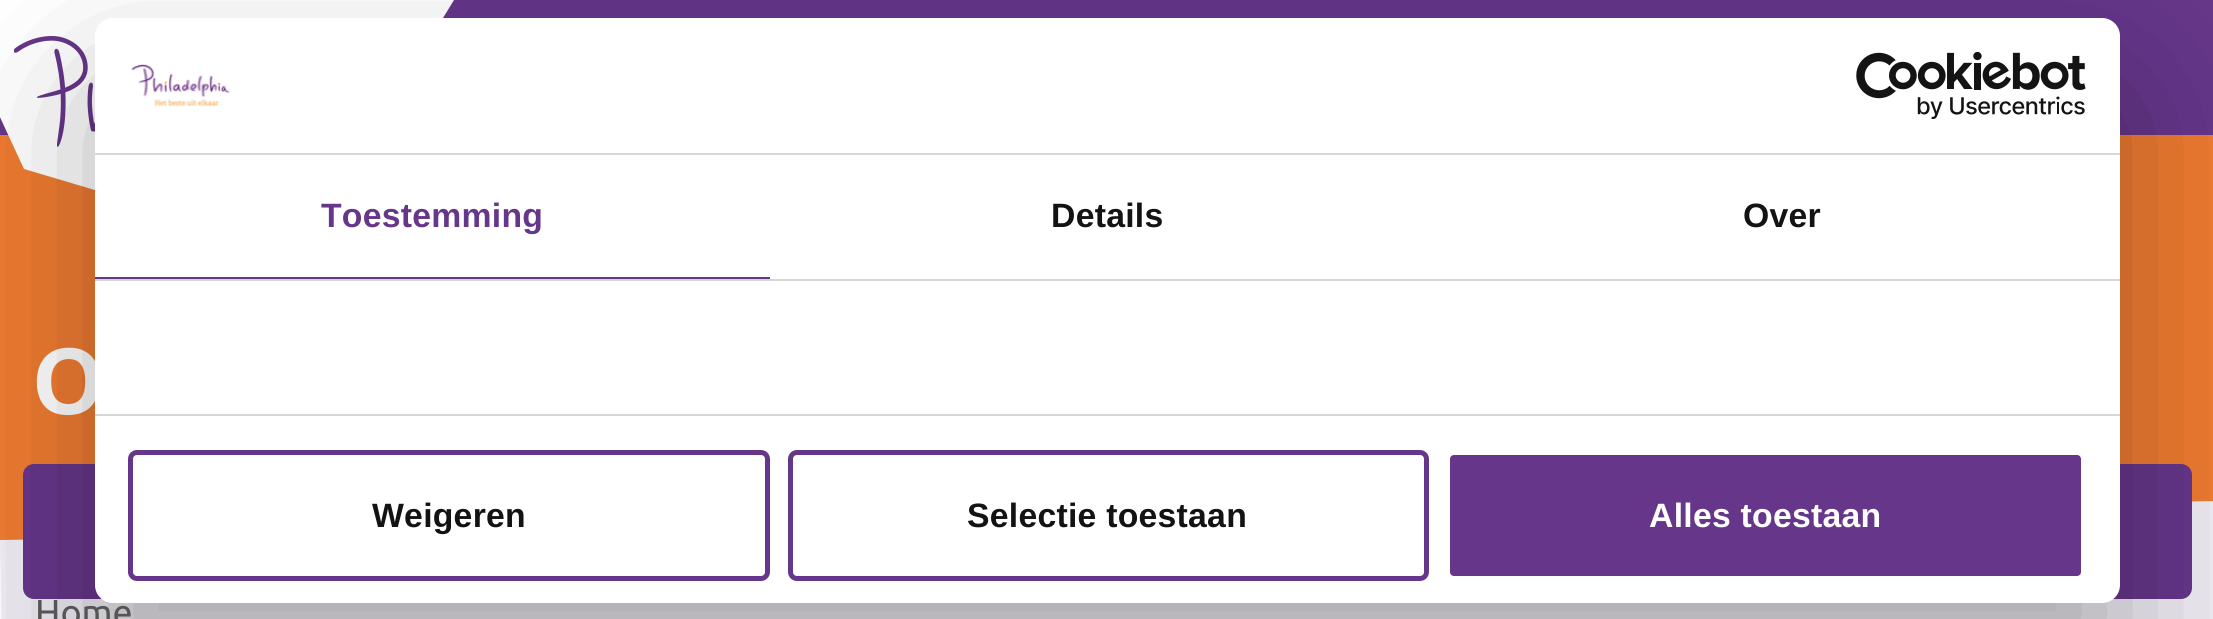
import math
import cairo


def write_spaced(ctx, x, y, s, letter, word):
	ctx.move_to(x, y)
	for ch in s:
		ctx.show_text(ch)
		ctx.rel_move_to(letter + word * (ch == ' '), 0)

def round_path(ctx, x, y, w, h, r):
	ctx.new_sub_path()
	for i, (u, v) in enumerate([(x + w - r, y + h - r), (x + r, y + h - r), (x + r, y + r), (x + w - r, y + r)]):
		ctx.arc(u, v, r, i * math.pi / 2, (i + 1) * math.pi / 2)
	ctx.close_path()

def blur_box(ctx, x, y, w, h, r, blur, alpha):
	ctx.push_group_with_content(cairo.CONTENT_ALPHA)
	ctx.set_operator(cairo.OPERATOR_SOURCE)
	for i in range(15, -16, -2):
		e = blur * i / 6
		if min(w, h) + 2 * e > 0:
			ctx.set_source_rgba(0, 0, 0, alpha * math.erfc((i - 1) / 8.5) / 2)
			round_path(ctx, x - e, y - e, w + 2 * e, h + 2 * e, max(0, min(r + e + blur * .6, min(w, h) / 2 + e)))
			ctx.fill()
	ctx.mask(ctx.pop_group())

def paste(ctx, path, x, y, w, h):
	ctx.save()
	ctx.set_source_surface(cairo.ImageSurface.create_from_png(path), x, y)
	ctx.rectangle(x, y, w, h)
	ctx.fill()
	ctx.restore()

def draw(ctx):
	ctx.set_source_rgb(1, 1, 1)
	ctx.paint()
	ctx.set_source_rgb(0.4, 0.212, 0.541)
	ctx.rectangle(0, 0, 2213, 135)
	ctx.fill()
	ctx.set_source_rgb(0.937, 0.482, 0.192)
	ctx.rectangle(0, 135, 2213, 405)
	ctx.fill()
	ctx.set_source_rgb(1, 1, 1)
	ctx.new_path()
	ctx.move_to(24, 169)
	ctx.line_to(-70, -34)
	ctx.line_to(438, -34)
	ctx.line_to(454, 0)
	ctx.line_to(366, 144)
	ctx.line_to(216, 226)
	ctx.close_path()
	ctx.fill()
	paste(ctx, 'media/1.png', 14, 36, 81, 111)
	ctx.select_font_face('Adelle', cairo.FONT_SLANT_NORMAL, cairo.FONT_WEIGHT_BOLD)
	ctx.set_font_size(90)
	ctx.move_to(34, 414)
	ctx.show_text('O')
	ctx.set_source_rgb(0.941, 0.922, 0.957)
	ctx.new_path()
	ctx.move_to(0, 540)
	ctx.line_to(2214, 501)
	ctx.line_to(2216, 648)
	ctx.line_to(3, 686)
	ctx.close_path()
	ctx.fill()
	ctx.set_source_rgb(0.4, 0.212, 0.541)
	round_path(ctx, 23, 464, 2169, 135, 11)
	ctx.fill()
	ctx.set_source_rgb(0, 0, 0)
	blur_box(ctx, 95, 90, 2025, 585, 18, 76.5, 0.3)
	ctx.select_font_face('Ubuntu')
	ctx.set_font_size(36)
	ctx.set_source_rgb(0.333, 0.333, 0.333)
	ctx.move_to(35, 625)
	ctx.show_text('Home')
	ctx.set_source_rgb(1, 1, 1)
	round_path(ctx, 95, 18, 2025, 585, 18)
	ctx.fill()
	ctx.set_source_rgb(0.839, 0.839, 0.839)
	ctx.rectangle(95, 153, 2025, 2)
	ctx.fill()
	paste(ctx, 'media/2.png', 131, 64, 100, 43)
	paste(ctx, 'media/3.png', 1856, 52, 230, 67)
	ctx.rectangle(95, 279, 2025, 2)
	ctx.fill()
	ctx.set_source_rgb(0.4, 0.212, 0.541)
	ctx.rectangle(95, 277, 675, 2)
	ctx.fill()
	ctx.select_font_face('Liberation Sans', cairo.FONT_SLANT_NORMAL, cairo.FONT_WEIGHT_BOLD)
	ctx.set_font_size(33.75)
	write_spaced(ctx, 321, 227, 'Toestemming', 0.25, 0)
	ctx.set_source_rgb(0.078, 0.078, 0.078)
	write_spaced(ctx, 1051, 227, 'Details', 0.25, 0)
	write_spaced(ctx, 1743, 227, 'Over', 0.25, 0)
	ctx.set_source_rgb(0.839, 0.839, 0.839)
	ctx.rectangle(95, 414, 2025, 2)
	ctx.fill()
	round_path(ctx, 130.5, 452.5, 637, 126, 6.5)
	ctx.set_source_rgb(0.4, 0.212, 0.541)
	ctx.set_line_width(5)
	ctx.stroke()
	ctx.set_source_rgb(0.078, 0.078, 0.078)
	write_spaced(ctx, 372, 527, 'Weigeren', 0.25, 0)
	round_path(ctx, 790.5, 452.5, 636, 126, 6.5)
	ctx.set_source_rgb(0.4, 0.212, 0.541)
	ctx.stroke()
	ctx.set_source_rgb(0.078, 0.078, 0.078)
	write_spaced(ctx, 967, 527, 'Selectie toestaan', 0.25, 0)
	ctx.set_source_rgb(0.4, 0.212, 0.541)
	round_path(ctx, 1447.5, 452.5, 636, 126, 6.5)
	ctx.fill_preserve()
	ctx.set_source_rgb(1, 1, 1)
	ctx.stroke()
	write_spaced(ctx, 1649, 527, 'Alles toestaan', 0.25, 0)


surface = cairo.ImageSurface(cairo.FORMAT_RGB24, 2213, 619)
ctx = cairo.Context(surface)
options = cairo.FontOptions()
options.set_hint_metrics(cairo.HINT_METRICS_OFF)
options.set_hint_style(cairo.HINT_STYLE_NONE)
ctx.set_font_options(options)
ctx.set_miter_limit(4)
draw(ctx)
surface.write_to_png('image.png')
